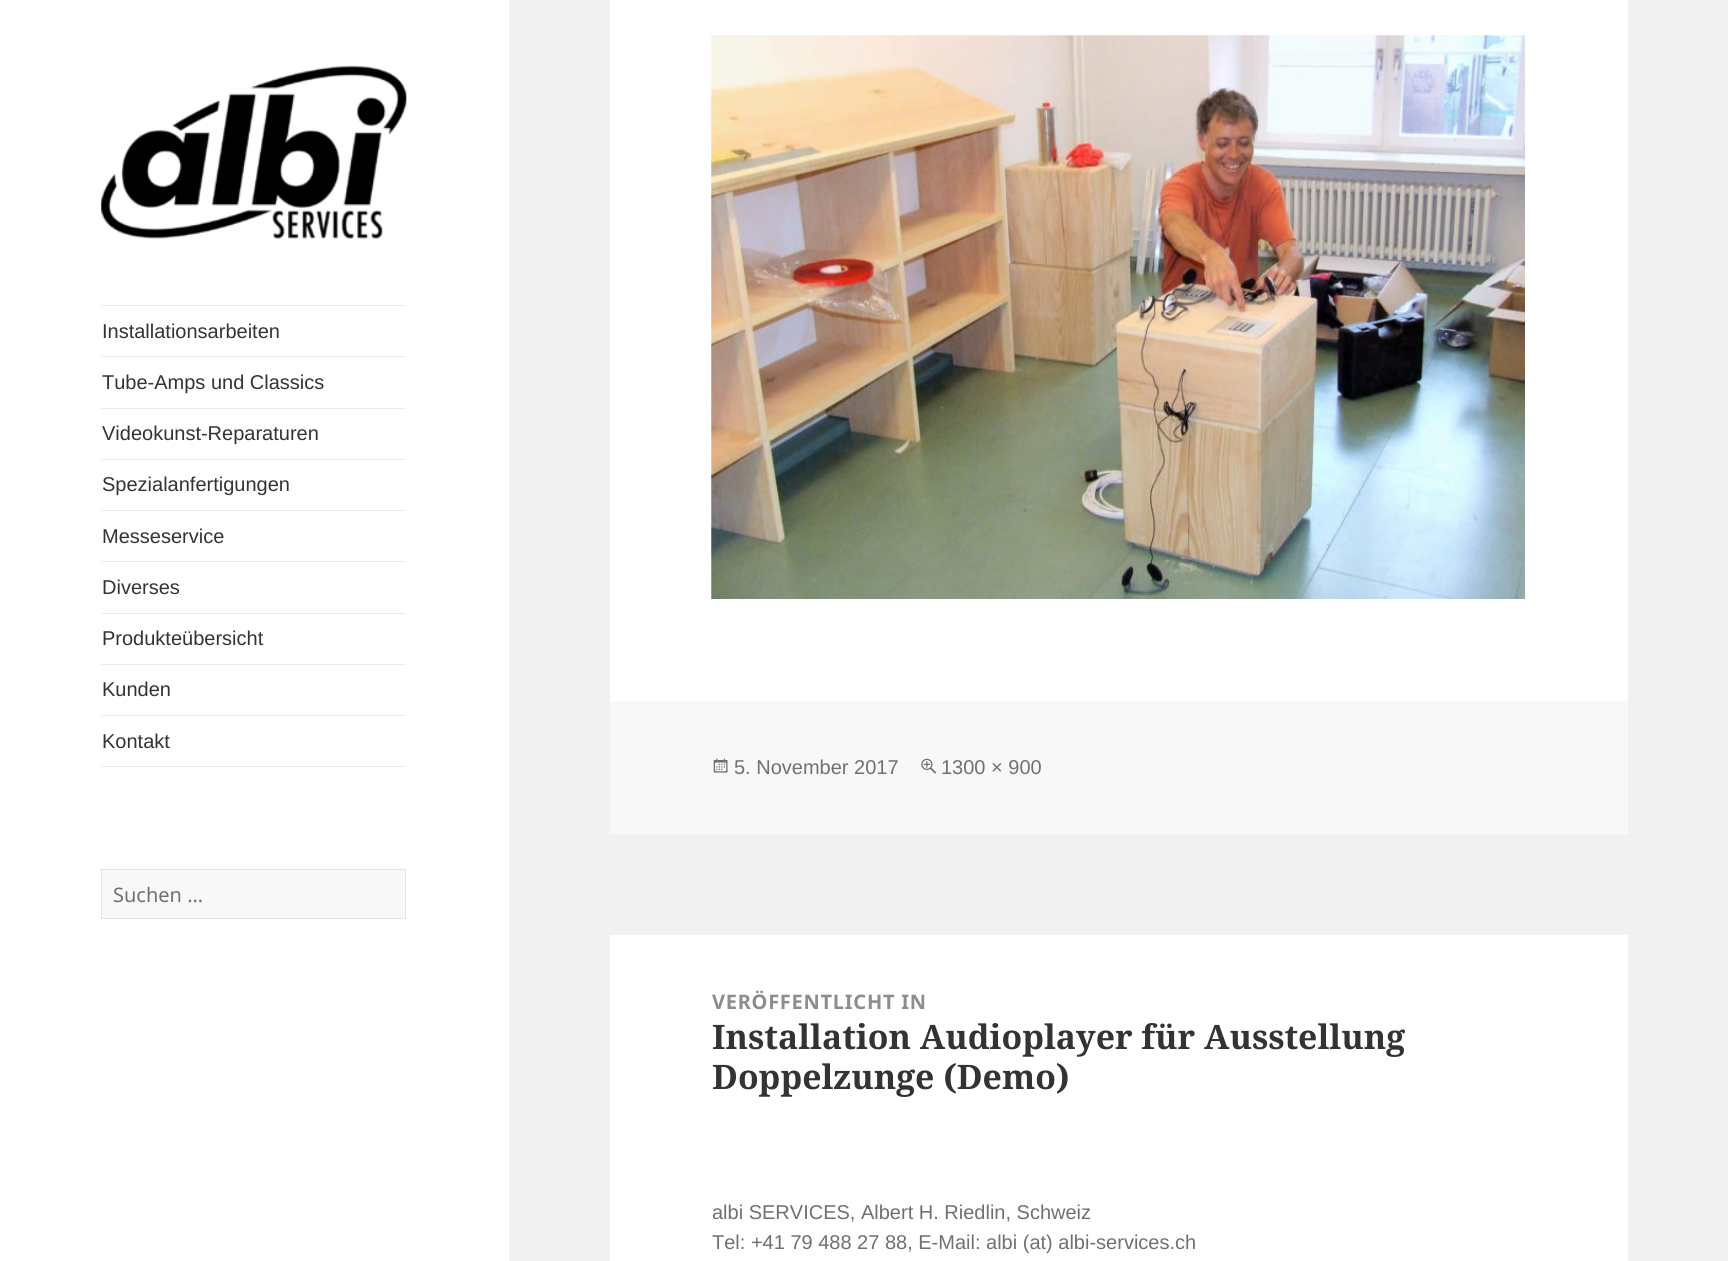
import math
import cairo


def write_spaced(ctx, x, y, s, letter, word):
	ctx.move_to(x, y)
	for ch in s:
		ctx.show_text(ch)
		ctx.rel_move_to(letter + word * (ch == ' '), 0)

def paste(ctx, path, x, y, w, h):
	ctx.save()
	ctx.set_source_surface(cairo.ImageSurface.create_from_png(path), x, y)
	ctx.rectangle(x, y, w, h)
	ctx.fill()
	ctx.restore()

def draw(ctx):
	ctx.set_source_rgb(0.945, 0.945, 0.945)
	ctx.paint()
	ctx.set_source_rgb(1, 1, 1)
	ctx.rectangle(0, 0, 509, 1261)
	ctx.fill()
	paste(ctx, 'media/1.png', 101, 65, 306, 174)
	ctx.set_source_rgb(0.922, 0.922, 0.922)
	ctx.rectangle(101, 305, 305, 1)
	ctx.fill()
	ctx.rectangle(101, 766, 305, 1)
	ctx.fill()
	ctx.select_font_face('Liberation Sans')
	ctx.set_font_size(20)
	ctx.set_source_rgb(0.2, 0.2, 0.2)
	ctx.move_to(102, 338)
	ctx.show_text('Installationsarbeiten')
	ctx.set_source_rgb(0.922, 0.922, 0.922)
	ctx.rectangle(101, 356, 305, 1)
	ctx.fill()
	ctx.set_source_rgb(0.2, 0.2, 0.2)
	ctx.move_to(102, 389)
	ctx.show_text('Tube-Amps und Classics')
	ctx.set_source_rgb(0.922, 0.922, 0.922)
	ctx.rectangle(101, 408, 305, 1)
	ctx.fill()
	ctx.set_source_rgb(0.2, 0.2, 0.2)
	ctx.move_to(102, 440)
	ctx.show_text('Videokunst-Reparaturen')
	ctx.set_source_rgb(0.922, 0.922, 0.922)
	ctx.rectangle(101, 459, 305, 1)
	ctx.fill()
	ctx.set_source_rgb(0.2, 0.2, 0.2)
	ctx.move_to(102, 491)
	ctx.show_text('Spezialanfertigungen')
	ctx.set_source_rgb(0.922, 0.922, 0.922)
	ctx.rectangle(101, 510, 305, 1)
	ctx.fill()
	ctx.set_source_rgb(0.2, 0.2, 0.2)
	ctx.move_to(102, 543)
	ctx.show_text('Messeservice')
	ctx.set_source_rgb(0.922, 0.922, 0.922)
	ctx.rectangle(101, 561, 305, 1)
	ctx.fill()
	ctx.set_source_rgb(0.2, 0.2, 0.2)
	ctx.move_to(102, 594)
	ctx.show_text('Diverses')
	ctx.set_source_rgb(0.922, 0.922, 0.922)
	ctx.rectangle(101, 613, 305, 1)
	ctx.fill()
	ctx.set_source_rgb(0.2, 0.2, 0.2)
	ctx.move_to(102, 645)
	ctx.show_text('Produkteübersicht')
	ctx.set_source_rgb(0.922, 0.922, 0.922)
	ctx.rectangle(101, 664, 305, 1)
	ctx.fill()
	ctx.set_source_rgb(0.2, 0.2, 0.2)
	ctx.move_to(102, 696)
	ctx.show_text('Kunden')
	ctx.set_source_rgb(0.922, 0.922, 0.922)
	ctx.rectangle(101, 715, 305, 1)
	ctx.fill()
	ctx.set_source_rgb(0.2, 0.2, 0.2)
	ctx.move_to(102, 748)
	ctx.show_text('Kontakt')
	ctx.set_source_rgb(0.969, 0.969, 0.969)
	ctx.rectangle(101.5, 869.5, 304, 49)
	ctx.fill_preserve()
	ctx.set_source_rgb(0.89, 0.89, 0.89)
	ctx.set_line_width(1)
	ctx.stroke()
	ctx.select_font_face('Noto Sans')
	ctx.set_source_rgb(0.439, 0.439, 0.439)
	ctx.move_to(113, 902)
	ctx.show_text('Suchen …')
	ctx.set_source_rgb(1, 1, 1)
	ctx.rectangle(610, 0, 1018, 701)
	ctx.fill()
	paste(ctx, 'media/2.png', 711, 35, 814, 564)
	ctx.set_source_rgb(0.969, 0.969, 0.969)
	ctx.rectangle(610, 701, 1018, 133)
	ctx.fill()
	paste(ctx, 'media/3.png', 713, 758, 15, 15)
	ctx.select_font_face('Liberation Sans')
	ctx.set_source_rgb(0.439, 0.439, 0.439)
	ctx.move_to(734, 774)
	ctx.show_text('5. November 2017')
	paste(ctx, 'media/4.png', 921, 758, 16, 16)
	ctx.move_to(941, 774)
	ctx.show_text('1300 × 900')
	ctx.set_source_rgb(1, 1, 1)
	ctx.rectangle(610, 935, 1018, 326)
	ctx.fill()
	ctx.select_font_face('Noto Sans', cairo.FONT_SLANT_NORMAL, cairo.FONT_WEIGHT_BOLD)
	ctx.set_source_rgb(0.553, 0.553, 0.553)
	write_spaced(ctx, 712, 1009, 'VERÖFFENTLICHT IN', 0.75, 0)
	ctx.select_font_face('Noto Serif', cairo.FONT_SLANT_NORMAL, cairo.FONT_WEIGHT_BOLD)
	ctx.set_font_size(33.75)
	ctx.set_source_rgb(0.2, 0.2, 0.2)
	ctx.move_to(712, 1049)
	ctx.show_text('Installation Audioplayer für Ausstellung')
	ctx.move_to(712, 1089)
	ctx.show_text('Doppelzunge (Demo)')
	ctx.select_font_face('Liberation Sans')
	ctx.set_font_size(20)
	ctx.set_source_rgb(0.439, 0.439, 0.439)
	ctx.move_to(712, 1219)
	ctx.show_text('albi SERVICES, Albert H. Riedlin, Schweiz')
	ctx.move_to(712, 1249)
	ctx.show_text('Tel: +41 79 488 27 88, E-Mail: albi (at) albi-services.ch')


surface = cairo.ImageSurface(cairo.FORMAT_RGB24, 1728, 1261)
ctx = cairo.Context(surface)
options = cairo.FontOptions()
options.set_hint_metrics(cairo.HINT_METRICS_OFF)
options.set_hint_style(cairo.HINT_STYLE_NONE)
ctx.set_font_options(options)
ctx.set_miter_limit(4)
draw(ctx)
surface.write_to_png('image.png')
